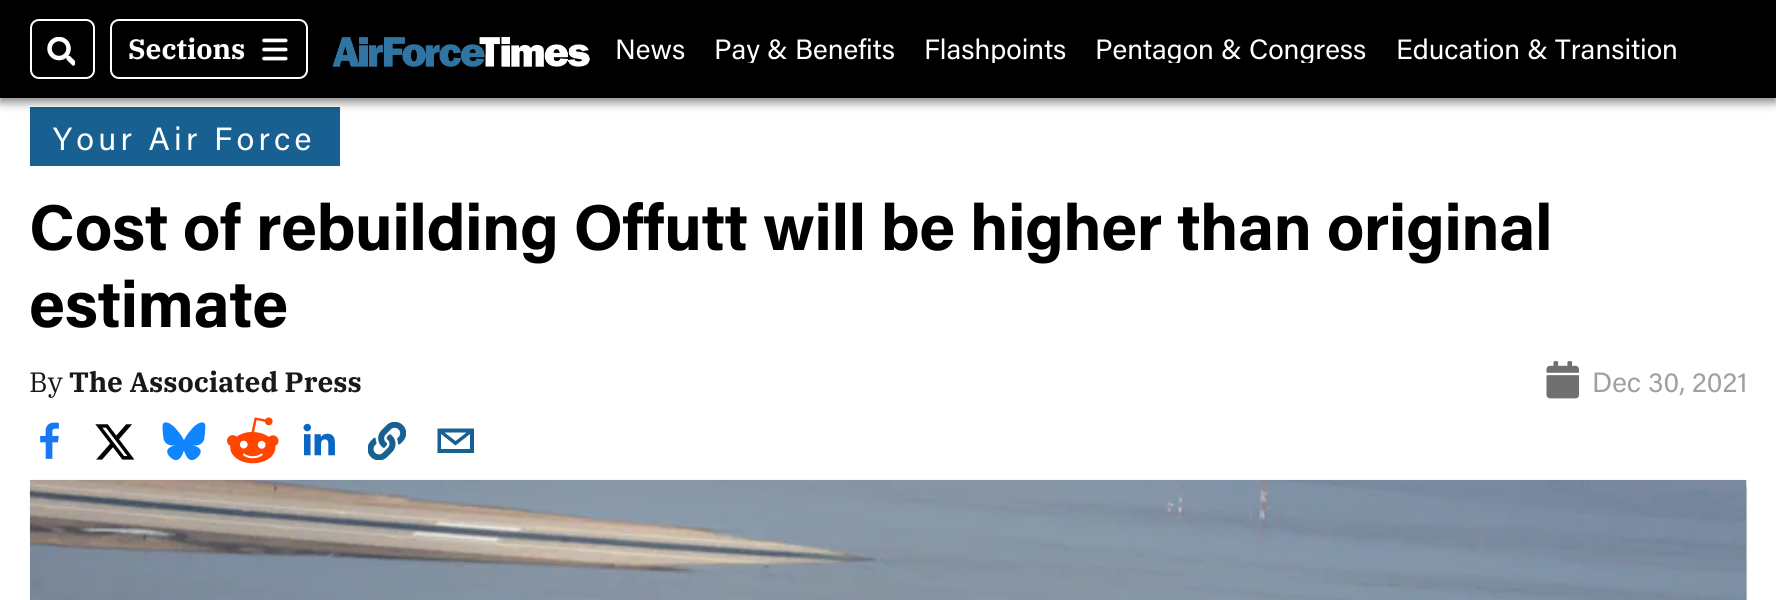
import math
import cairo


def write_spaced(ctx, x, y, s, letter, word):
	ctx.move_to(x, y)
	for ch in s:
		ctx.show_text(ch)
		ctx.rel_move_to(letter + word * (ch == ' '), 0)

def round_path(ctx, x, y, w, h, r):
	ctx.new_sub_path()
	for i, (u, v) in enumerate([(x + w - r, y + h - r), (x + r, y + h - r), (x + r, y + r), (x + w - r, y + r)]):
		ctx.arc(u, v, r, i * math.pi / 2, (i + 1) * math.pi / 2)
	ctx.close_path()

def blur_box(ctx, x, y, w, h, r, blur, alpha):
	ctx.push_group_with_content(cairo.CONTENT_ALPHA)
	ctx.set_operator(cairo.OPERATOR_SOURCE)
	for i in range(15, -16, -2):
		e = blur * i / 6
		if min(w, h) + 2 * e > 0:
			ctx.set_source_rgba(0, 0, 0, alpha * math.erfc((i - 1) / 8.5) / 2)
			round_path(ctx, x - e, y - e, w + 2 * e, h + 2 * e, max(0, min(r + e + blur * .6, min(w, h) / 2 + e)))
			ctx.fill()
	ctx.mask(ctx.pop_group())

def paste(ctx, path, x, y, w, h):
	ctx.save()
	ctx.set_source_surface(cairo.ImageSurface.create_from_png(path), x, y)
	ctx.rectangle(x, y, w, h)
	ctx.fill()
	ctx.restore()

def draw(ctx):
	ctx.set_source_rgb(1, 1, 1)
	ctx.paint()
	ctx.set_source_rgb(0.094, 0.376, 0.569)
	ctx.rectangle(30, 107, 310, 59)
	ctx.fill()
	ctx.set_source_rgb(0, 0, 0)
	blur_box(ctx, 0, 4, 1776, 98, 0, 5, 0.5)
	ctx.set_source_rgb(0, 0, 0)
	ctx.rectangle(0, 0, 1776, 98)
	ctx.fill()
	round_path(ctx, 31, 20, 63, 58, 8)
	ctx.set_source_rgb(1, 1, 1)
	ctx.stroke()
	paste(ctx, 'media/1.png', 47, 37, 28, 29)
	round_path(ctx, 111, 20, 196, 58, 8)
	ctx.stroke()
	ctx.select_font_face('IBM Plex Serif', cairo.FONT_SLANT_NORMAL, cairo.FONT_WEIGHT_BOLD)
	ctx.set_font_size(28)
	ctx.move_to(128, 59)
	ctx.show_text('Sections')
	paste(ctx, 'media/2.png', 262, 38, 26, 23)
	paste(ctx, 'media/3.png', 332, 37, 258, 30)
	ctx.select_font_face('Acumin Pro')
	ctx.move_to(615, 59)
	ctx.show_text('News')
	ctx.save()
	ctx.rectangle(614, 35, 1110, 28)
	ctx.clip()
	for x, y, s in [
		(714, 59, 'Pay & Benefits'),
		(924, 59, 'Flashpoints'),
		(1095, 59, 'Pentagon & Congress'),
	]:
		ctx.move_to(x, y)
		ctx.show_text(s)
	ctx.restore()
	ctx.move_to(1396, 59)
	ctx.show_text('Education & Transition')
	ctx.set_font_size(32.25)
	write_spaced(ctx, 53, 150, 'Your Air Force', 4.25, 0)
	ctx.select_font_face('Acumin Pro', cairo.FONT_SLANT_NORMAL, cairo.FONT_WEIGHT_BOLD)
	ctx.set_font_size(64.9)
	ctx.set_source_rgb(0, 0, 0)
	write_spaced(ctx, 29, 250, 'Cost of rebuilding Offutt will be higher than original', -0.55, 0)
	write_spaced(ctx, 29, 327, 'estimate', -0.55, 0)
	ctx.select_font_face('IBM Plex Serif')
	ctx.set_font_size(28)
	ctx.set_source_rgb(0.098, 0.098, 0.098)
	ctx.move_to(29, 392)
	ctx.show_text('By')
	ctx.select_font_face('IBM Plex Serif', cairo.FONT_SLANT_NORMAL, cairo.FONT_WEIGHT_BOLD)
	ctx.move_to(69, 392)
	ctx.show_text('The Associated Press')
	paste(ctx, 'media/4.png', 1546, 361, 34, 38)
	ctx.select_font_face('Acumin Pro')
	ctx.set_source_rgb(0.627, 0.627, 0.627)
	ctx.move_to(1592, 392)
	ctx.show_text('Dec 30, 2021')
	paste(ctx, 'media/5.png', 40, 422, 19, 37)
	paste(ctx, 'media/6.png', 95, 424, 40, 36)
	paste(ctx, 'media/7.png', 162, 422, 44, 39)
	paste(ctx, 'media/8.png', 227, 417, 52, 47)
	paste(ctx, 'media/9.png', 303, 423, 32, 33)
	paste(ctx, 'media/10.png', 368, 422, 38, 38)
	ctx.set_source_rgb(0.094, 0.376, 0.569)
	ctx.new_path()
	ctx.move_to(437.5, 428.5)
	ctx.line_to(437.5, 453)
	ctx.line_to(474, 453)
	ctx.line_to(474, 428.5)
	ctx.close_path()
	ctx.move_to(466.5, 432.5)
	ctx.line_to(455.5, 441)
	ctx.line_to(444.5, 432.5)
	ctx.close_path()
	ctx.move_to(441, 449)
	ctx.line_to(441, 434)
	ctx.line_to(455.5, 445.5)
	ctx.line_to(470, 434)
	ctx.line_to(470, 449)
	ctx.close_path()
	ctx.fill()
	ctx.set_source_rgb(0.776, 0.776, 0.776)
	round_path(ctx, 30, 480, 1717, 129, 9)
	ctx.fill()
	paste(ctx, 'media/11.png', 29, 479, 1718, 121)


surface = cairo.ImageSurface(cairo.FORMAT_RGB24, 1776, 600)
ctx = cairo.Context(surface)
options = cairo.FontOptions()
options.set_hint_metrics(cairo.HINT_METRICS_OFF)
options.set_hint_style(cairo.HINT_STYLE_NONE)
ctx.set_font_options(options)
ctx.set_miter_limit(4)
draw(ctx)
surface.write_to_png('image.png')
